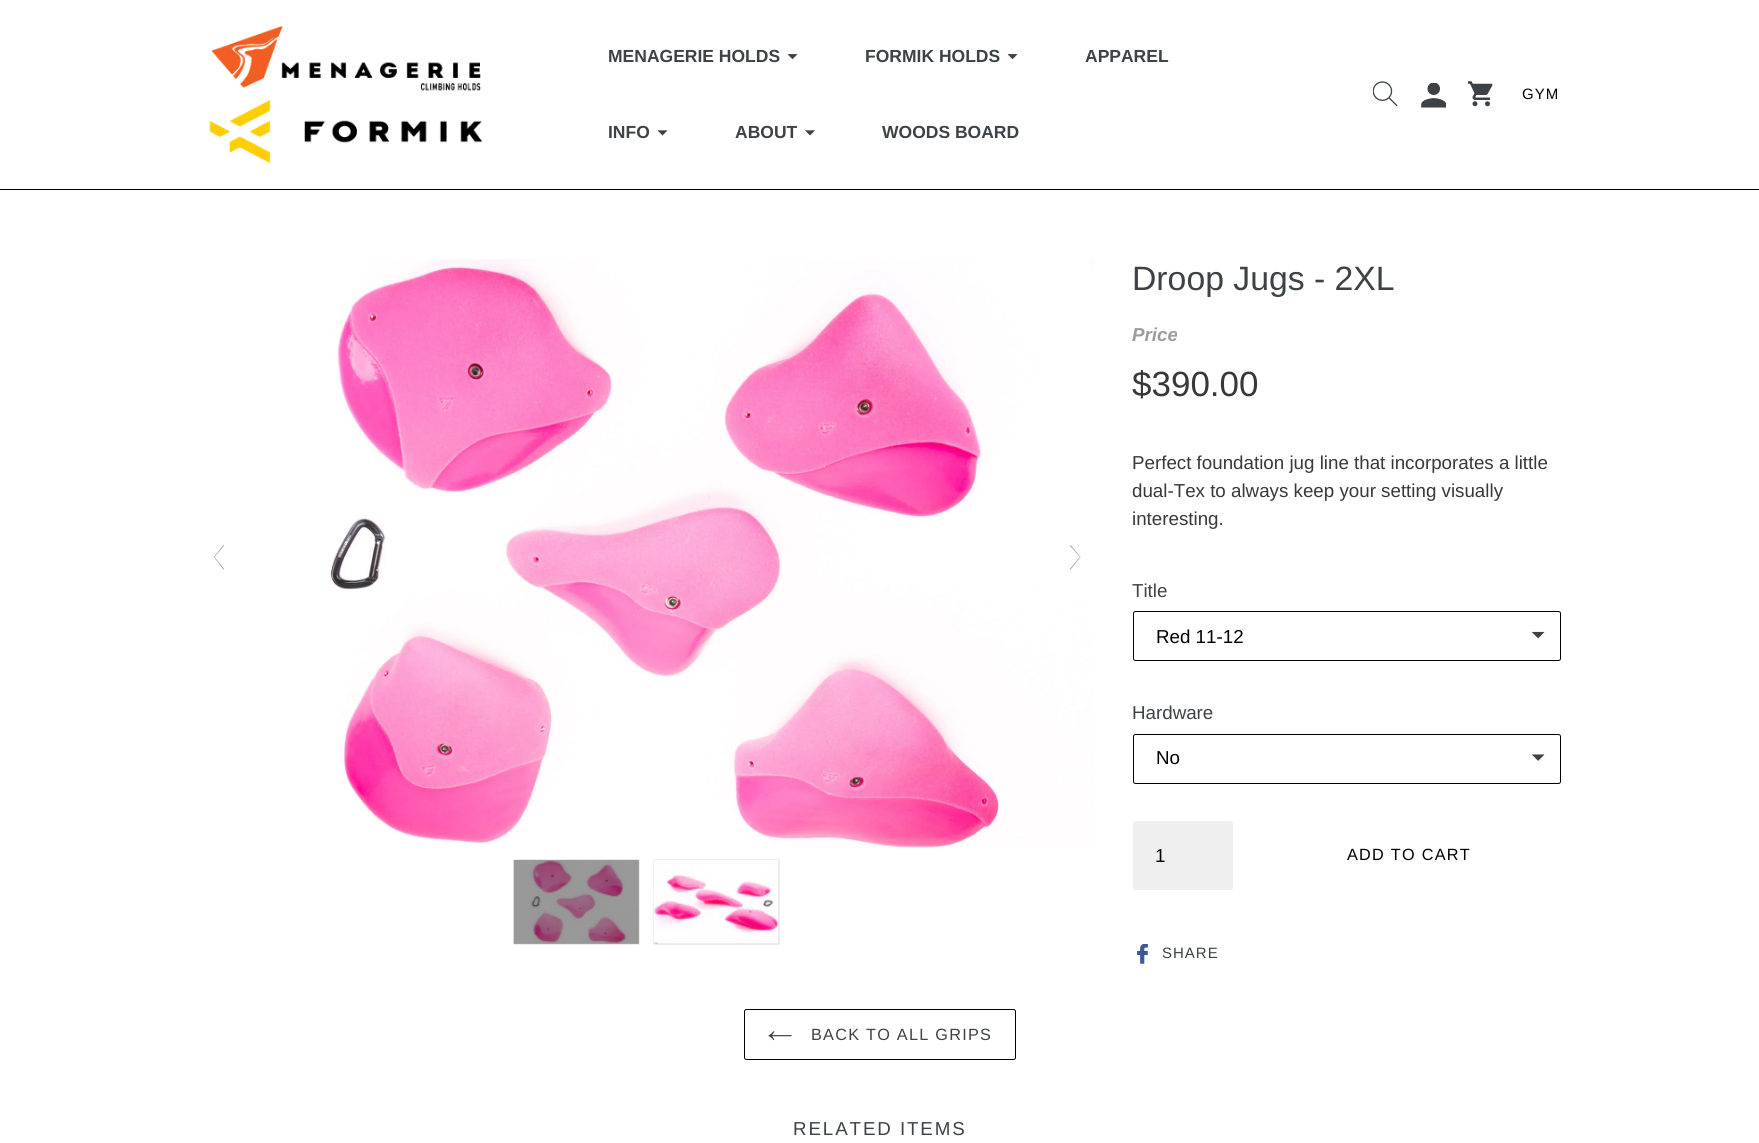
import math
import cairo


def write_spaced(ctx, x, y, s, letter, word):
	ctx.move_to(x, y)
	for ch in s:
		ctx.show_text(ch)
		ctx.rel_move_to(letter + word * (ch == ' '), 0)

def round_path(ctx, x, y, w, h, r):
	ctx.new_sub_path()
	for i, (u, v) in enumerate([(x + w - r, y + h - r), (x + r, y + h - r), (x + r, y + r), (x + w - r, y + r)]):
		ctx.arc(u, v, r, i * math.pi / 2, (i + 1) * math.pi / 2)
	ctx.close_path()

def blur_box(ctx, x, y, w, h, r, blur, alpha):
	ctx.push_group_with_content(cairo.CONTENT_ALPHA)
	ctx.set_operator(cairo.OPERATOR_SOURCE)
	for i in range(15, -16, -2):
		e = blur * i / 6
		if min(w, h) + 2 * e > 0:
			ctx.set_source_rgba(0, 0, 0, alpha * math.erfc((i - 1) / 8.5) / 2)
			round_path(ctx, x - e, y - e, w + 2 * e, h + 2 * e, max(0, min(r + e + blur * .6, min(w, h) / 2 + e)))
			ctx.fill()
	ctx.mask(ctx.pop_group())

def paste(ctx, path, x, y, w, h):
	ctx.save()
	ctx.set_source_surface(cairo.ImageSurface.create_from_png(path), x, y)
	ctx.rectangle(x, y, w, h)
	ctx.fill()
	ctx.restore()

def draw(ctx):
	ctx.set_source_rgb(1, 1, 1)
	ctx.paint()
	ctx.set_source_rgb(0, 0, 0)
	ctx.rectangle(0, 189, 1759, 1)
	ctx.fill()
	paste(ctx, 'media/1.png', 209, 26, 273, 138)
	ctx.select_font_face('Liberation Sans', cairo.FONT_SLANT_NORMAL, cairo.FONT_WEIGHT_BOLD)
	ctx.set_font_size(17.5)
	ctx.set_source_rgb(0.239, 0.259, 0.275)
	ctx.move_to(608, 62)
	ctx.show_text('MENAGERIE HOLDS')
	paste(ctx, 'media/2.png', 788, 54, 10, 6)
	ctx.move_to(865, 62)
	ctx.show_text('FORMIK HOLDS')
	paste(ctx, 'media/2.png', 1008, 54, 10, 6)
	ctx.move_to(1085, 62)
	ctx.show_text('APPAREL')
	ctx.move_to(608, 138)
	ctx.show_text('INFO')
	paste(ctx, 'media/3.png', 658, 130, 10, 6)
	ctx.move_to(735, 138)
	ctx.show_text('ABOUT')
	paste(ctx, 'media/4.png', 805, 130, 10, 6)
	ctx.move_to(882, 138)
	ctx.show_text('WOODS BOARD')
	paste(ctx, 'media/5.png', 1373, 81, 25, 26)
	paste(ctx, 'media/6.png', 1421, 83, 25, 25)
	paste(ctx, 'media/7.png', 1468, 81, 25, 26)
	ctx.select_font_face('Liberation Sans')
	ctx.set_font_size(15)
	ctx.set_source_rgb(0, 0, 0)
	write_spaced(ctx, 1522, 99, 'GYM', 1, 0)
	ctx.set_source_rgb(0.502, 0.502, 0.502)
	ctx.new_path()
	ctx.move_to(214, 557)
	ctx.line_to(223.5, 545)
	ctx.line_to(224, 545.5)
	ctx.line_to(214.5, 557)
	ctx.line_to(224, 569)
	ctx.line_to(223.5, 569.5)
	ctx.close_path()
	ctx.fill()
	paste(ctx, 'media/8.png', 329, 259, 766, 589)
	ctx.set_source_rgb(0.498, 0.498, 0.498)
	ctx.new_path()
	ctx.move_to(1080.5, 557)
	ctx.line_to(1070.5, 569.5)
	ctx.line_to(1070, 569)
	ctx.line_to(1080, 557)
	ctx.line_to(1070, 545.5)
	ctx.line_to(1070.5, 545)
	ctx.close_path()
	ctx.fill()
	ctx.set_source_rgb(0, 0, 0)
	blur_box(ctx, 514, 860, 125, 84, 0, 0.5, 0.3)
	paste(ctx, 'media/9.png', 513, 860, 126, 84)
	blur_box(ctx, 654, 860, 125, 84, 0, 0.5, 0.3)
	paste(ctx, 'media/10.png', 653, 860, 126, 84)
	ctx.set_font_size(33.75)
	ctx.set_source_rgb(0.239, 0.259, 0.275)
	ctx.move_to(1132, 290)
	ctx.show_text('Droop Jugs - 2XL')
	ctx.select_font_face('Liberation Sans', cairo.FONT_SLANT_ITALIC, cairo.FONT_WEIGHT_BOLD)
	ctx.set_font_size(18.75)
	ctx.set_source_rgb(0.612, 0.612, 0.612)
	ctx.move_to(1132, 341)
	ctx.show_text('Price')
	ctx.select_font_face('Liberation Sans')
	ctx.set_font_size(35)
	ctx.set_source_rgb(0.22, 0.22, 0.22)
	ctx.move_to(1132, 396)
	ctx.show_text('$390.00')
	ctx.set_font_size(18.75)
	for x, y, s in [
		(1132, 469, 'Perfect foundation jug line that incorporates a little'),
		(1132, 497, 'dual-Tex to always keep your setting visually'),
		(1132, 525, 'interesting.'),
	]:
		ctx.move_to(x, y)
		ctx.show_text(s)
	ctx.set_source_rgb(0.239, 0.259, 0.275)
	ctx.move_to(1132, 597)
	ctx.show_text('Title')
	paste(ctx, 'media/11.png', 1531, 631, 14, 8)
	round_path(ctx, 1133.5, 611.5, 427, 49, 2)
	ctx.set_source_rgb(0, 0, 0)
	ctx.set_line_width(1)
	ctx.stroke()
	ctx.move_to(1156, 643)
	ctx.show_text('Red 11-12')
	ctx.set_source_rgb(0.239, 0.259, 0.275)
	ctx.move_to(1132, 719)
	ctx.show_text('Hardware')
	paste(ctx, 'media/12.png', 1531, 754, 14, 7)
	round_path(ctx, 1133.5, 734.5, 427, 49, 2)
	ctx.set_source_rgb(0, 0, 0)
	ctx.stroke()
	ctx.move_to(1156, 764)
	ctx.show_text('No')
	ctx.set_source_rgb(0.937, 0.937, 0.937)
	round_path(ctx, 1133, 821, 100, 69, 2.5)
	ctx.fill()
	ctx.set_source_rgb(0, 0, 0)
	ctx.move_to(1155, 862)
	ctx.show_text('1')
	ctx.set_font_size(16.25)
	write_spaced(ctx, 1347, 860, 'ADD TO CART', 1.25, 0)
	paste(ctx, 'media/13.png', 1137, 944, 11, 20)
	ctx.set_font_size(15)
	ctx.set_source_rgb(0.239, 0.259, 0.275)
	write_spaced(ctx, 1162, 958, 'SHARE', 1, 0)
	round_path(ctx, 744.5, 1009.5, 271, 50, 2)
	ctx.set_source_rgb(0, 0, 0)
	ctx.stroke()
	paste(ctx, 'media/14.png', 768, 1031, 24, 10)
	ctx.set_font_size(16.25)
	ctx.set_source_rgb(0.239, 0.259, 0.275)
	write_spaced(ctx, 811, 1040, 'BACK TO ALL GRIPS', 1.25, 0)
	ctx.set_font_size(18.75)
	write_spaced(ctx, 793, 1135, 'RELATED ITEMS', 1.9, 0)


surface = cairo.ImageSurface(cairo.FORMAT_RGB24, 1759, 1143)
ctx = cairo.Context(surface)
options = cairo.FontOptions()
options.set_hint_metrics(cairo.HINT_METRICS_OFF)
options.set_hint_style(cairo.HINT_STYLE_NONE)
ctx.set_font_options(options)
ctx.set_miter_limit(4)
draw(ctx)
surface.write_to_png('image.png')
